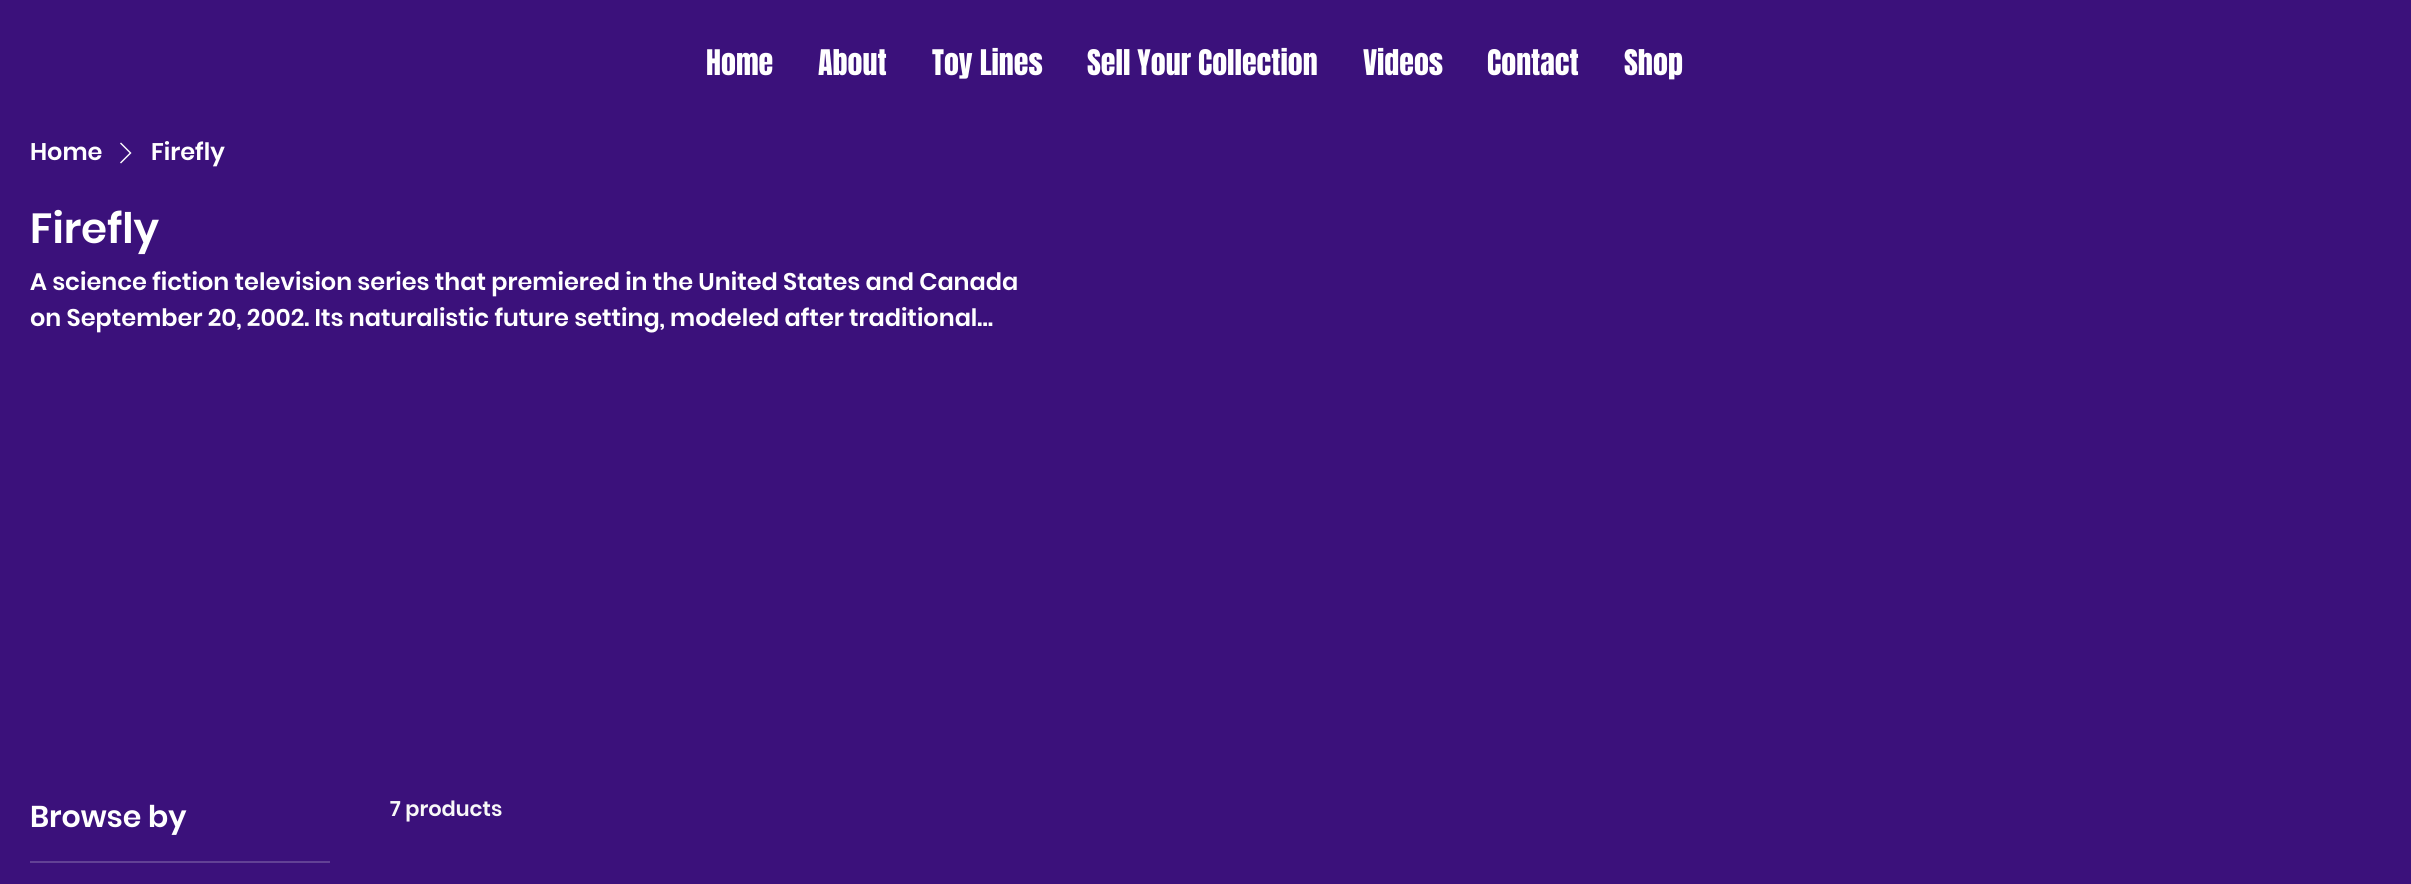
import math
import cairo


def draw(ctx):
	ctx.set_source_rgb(0.231, 0.067, 0.482)
	ctx.paint()
	ctx.select_font_face('Anton')
	ctx.set_font_size(30)
	ctx.set_source_rgb(1, 1, 1)
	for x, y, s in [
		(706, 75, 'Home'),
		(818, 75, 'About'),
		(932, 75, 'Toy Lines'),
		(1087, 75, 'Sell Your Collection'),
		(1363, 75, 'Videos'),
		(1487, 75, 'Contact'),
		(1624, 75, 'Shop'),
	]:
		ctx.move_to(x, y)
		ctx.show_text(s)
	ctx.select_font_face('Poppins SemiBold')
	ctx.set_font_size(24)
	ctx.move_to(30, 160)
	ctx.show_text('Home')
	ctx.set_fill_rule(cairo.FILL_RULE_EVEN_ODD)
	ctx.new_path()
	ctx.move_to(121, 142.5)
	ctx.line_to(131.5, 153)
	ctx.line_to(121, 163.5)
	ctx.line_to(120, 162.5)
	ctx.line_to(129.5, 153)
	ctx.line_to(120, 143.5)
	ctx.close_path()
	ctx.fill()
	ctx.move_to(151, 160)
	ctx.show_text('Firefly')
	ctx.set_font_size(42)
	ctx.move_to(30, 243)
	ctx.show_text('Firefly')
	ctx.set_font_size(24)
	ctx.move_to(30, 290)
	ctx.show_text('A science fiction television series that premiered in the United States and Canada')
	ctx.move_to(30, 326)
	ctx.show_text('on September 20, 2002. Its naturalistic future setting, modeled after traditional…')
	ctx.set_source_rgb(0.384, 0.255, 0.584)
	ctx.rectangle(30, 861, 300, 2)
	ctx.fill()
	ctx.set_font_size(30)
	ctx.set_source_rgb(1, 1, 1)
	ctx.move_to(30, 827)
	ctx.show_text('Browse by')
	ctx.set_font_size(21)
	ctx.set_source_rgb(0.969, 0.969, 0.969)
	ctx.move_to(390, 816)
	ctx.show_text('7 products')


surface = cairo.ImageSurface(cairo.FORMAT_RGB24, 2411, 884)
ctx = cairo.Context(surface)
options = cairo.FontOptions()
options.set_hint_metrics(cairo.HINT_METRICS_OFF)
options.set_hint_style(cairo.HINT_STYLE_NONE)
ctx.set_font_options(options)
ctx.set_miter_limit(4)
draw(ctx)
surface.write_to_png('image.png')
